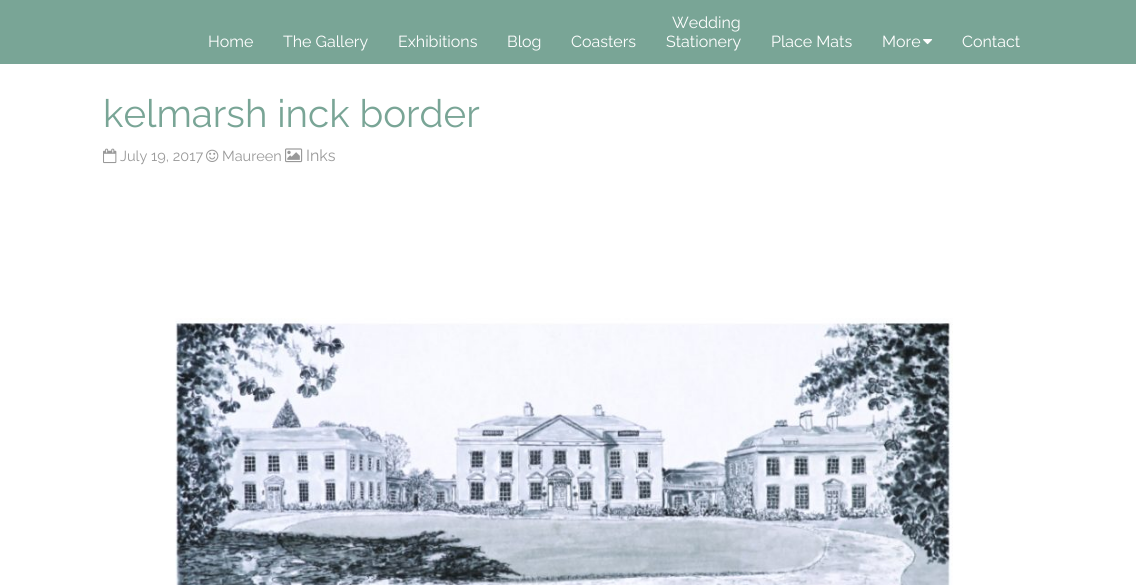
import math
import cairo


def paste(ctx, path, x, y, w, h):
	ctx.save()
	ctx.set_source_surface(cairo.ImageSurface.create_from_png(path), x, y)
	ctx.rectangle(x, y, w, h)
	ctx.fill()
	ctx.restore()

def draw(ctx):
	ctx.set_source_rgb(1, 1, 1)
	ctx.paint()
	ctx.set_source_rgb(0.475, 0.647, 0.588)
	ctx.rectangle(0, 0, 1136, 64)
	ctx.fill()
	ctx.select_font_face('Raleway Thin')
	ctx.set_font_size(16)
	ctx.set_source_rgb(1, 1, 1)
	for x, y, s in [
		(208, 47, 'Home'),
		(283, 47, 'The Gallery'),
		(398, 47, 'Exhibitions'),
		(507, 47, 'Blog'),
		(571, 47, 'Coasters'),
		(672, 28, 'Wedding'),
		(666, 47, 'Stationery'),
		(771, 47, 'Place Mats'),
		(882, 47, 'More'),
	]:
		ctx.move_to(x, y)
		ctx.show_text(s)
	paste(ctx, 'media/1.png', 923, 39, 10, 6)
	ctx.move_to(962, 47)
	ctx.show_text('Contact')
	ctx.set_font_size(38.5)
	ctx.set_source_rgb(0.475, 0.647, 0.588)
	ctx.move_to(103, 127)
	ctx.show_text('kelmarsh inck border')
	paste(ctx, 'media/2.png', 103, 148, 14, 16)
	ctx.set_font_size(14.5)
	ctx.set_source_rgb(0.6, 0.6, 0.6)
	ctx.move_to(120, 161)
	ctx.show_text('July 19, 2017')
	paste(ctx, 'media/3.png', 206, 149, 13, 13)
	ctx.move_to(222, 161)
	ctx.show_text('Maureen')
	paste(ctx, 'media/4.png', 285, 148, 18, 15)
	ctx.set_font_size(16)
	ctx.move_to(306, 161)
	ctx.show_text('Inks')
	paste(ctx, 'media/5.png', 175, 318, 778, 267)


surface = cairo.ImageSurface(cairo.FORMAT_RGB24, 1136, 585)
ctx = cairo.Context(surface)
options = cairo.FontOptions()
options.set_hint_metrics(cairo.HINT_METRICS_OFF)
options.set_hint_style(cairo.HINT_STYLE_NONE)
ctx.set_font_options(options)
ctx.set_miter_limit(4)
draw(ctx)
surface.write_to_png('image.png')
